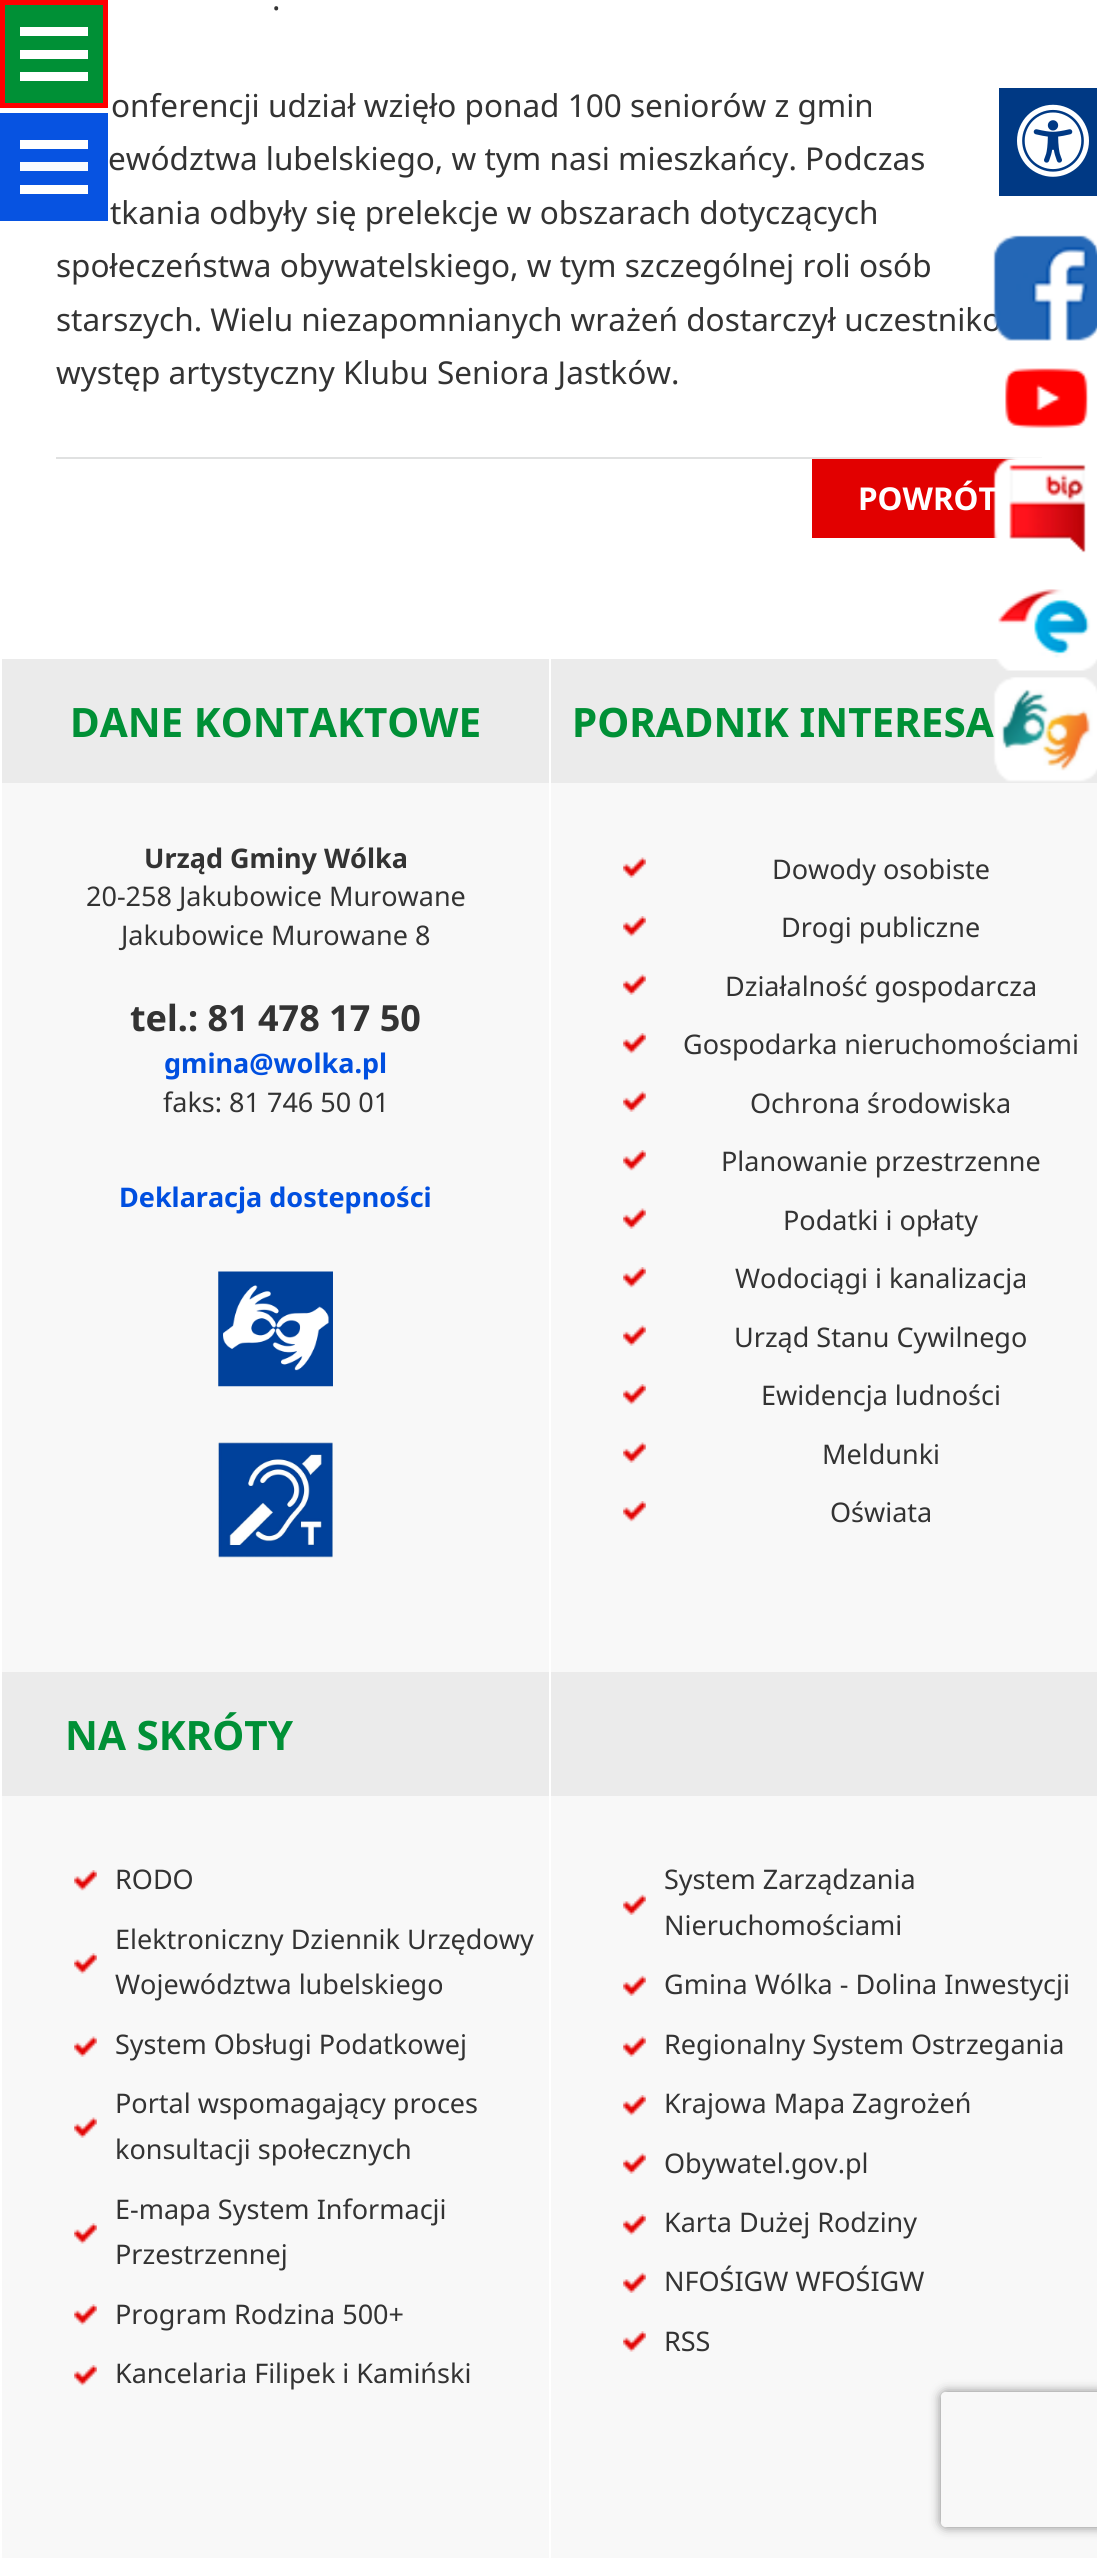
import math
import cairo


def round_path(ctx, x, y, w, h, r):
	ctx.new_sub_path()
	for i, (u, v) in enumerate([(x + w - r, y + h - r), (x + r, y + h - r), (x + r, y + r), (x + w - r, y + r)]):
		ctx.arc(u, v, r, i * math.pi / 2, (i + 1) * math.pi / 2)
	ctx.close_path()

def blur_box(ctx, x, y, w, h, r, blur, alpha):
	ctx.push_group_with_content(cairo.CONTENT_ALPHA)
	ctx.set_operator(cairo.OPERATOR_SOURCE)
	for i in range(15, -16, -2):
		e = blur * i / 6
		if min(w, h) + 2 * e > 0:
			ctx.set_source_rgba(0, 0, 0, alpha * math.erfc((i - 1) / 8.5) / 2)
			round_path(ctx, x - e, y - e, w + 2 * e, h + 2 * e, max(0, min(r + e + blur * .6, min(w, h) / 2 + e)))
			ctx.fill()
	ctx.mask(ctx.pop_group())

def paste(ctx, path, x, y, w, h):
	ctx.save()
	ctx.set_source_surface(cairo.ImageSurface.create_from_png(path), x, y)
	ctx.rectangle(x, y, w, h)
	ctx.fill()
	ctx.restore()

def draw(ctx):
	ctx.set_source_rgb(1, 1, 1)
	ctx.paint()
	ctx.set_source_rgb(0, 0.565, 0.212)
	ctx.rectangle(2.5, 2.5, 103, 103)
	ctx.fill_preserve()
	ctx.set_source_rgb(1, 0, 0)
	ctx.set_line_width(5)
	ctx.stroke()
	ctx.set_source_rgb(1, 1, 1)
	ctx.rectangle(20, 50, 68, 9)
	ctx.rectangle(20, 27, 68, 9)
	ctx.rectangle(20, 72, 68, 9)
	ctx.fill()
	ctx.set_source_rgba(0, 0.31, 0.878, 0.97)
	ctx.rectangle(0, 113, 108, 108)
	ctx.fill()
	ctx.set_source_rgba(1, 1, 1, 0.97)
	ctx.rectangle(20, 162, 68, 9)
	ctx.fill()
	ctx.set_source_rgb(1, 1, 1)
	ctx.rectangle(20, 140, 68, 9)
	ctx.rectangle(20, 185, 68, 9)
	ctx.fill()
	ctx.select_font_face('Noto Sans')
	ctx.set_font_size(31.5)
	ctx.set_source_rgb(0.2, 0.2, 0.2)
	for x, y, s in [
		(272, 10, '.'),
		(111, 117, 'onferencji udział wzięło ponad 100 seniorów z gmin'),
		(108, 170, 'ewództwa lubelskiego, w tym nasi mieszkańcy. Podczas'),
		(110, 224, 'tkania odbyły się prelekcje w obszarach dotyczących'),
		(56, 277, 'społeczeństwa obywatelskiego, w tym szczególnej roli osób'),
		(56, 331, 'starszych. Wielu niezapomnianych wrażeń dostarczył uczestniko'),
		(56, 384, 'występ artystyczny Klubu Seniora Jastków.'),
	]:
		ctx.move_to(x, y)
		ctx.show_text(s)
	ctx.set_source_rgb(0.878, 0.882, 0.882)
	ctx.rectangle(56, 457, 986, 2)
	ctx.fill()
	ctx.set_source_rgb(0.886, 0, 0)
	ctx.rectangle(812, 459, 207, 79)
	ctx.fill()
	ctx.select_font_face('Noto Sans', cairo.FONT_SLANT_NORMAL, cairo.FONT_WEIGHT_BOLD)
	ctx.set_source_rgb(1, 1, 1)
	ctx.move_to(858, 510)
	ctx.show_text('POWRÓT')
	ctx.set_source_rgb(0.969, 0.969, 0.969)
	ctx.rectangle(2, 783, 547, 889)
	ctx.fill()
	ctx.set_source_rgb(0.918, 0.918, 0.918)
	ctx.rectangle(2, 659, 547, 124)
	ctx.fill()
	ctx.set_font_size(40.5)
	ctx.set_source_rgb(0, 0.565, 0.212)
	ctx.move_to(70, 737)
	ctx.show_text('DANE KONTAKTOWE')
	ctx.set_font_size(27)
	ctx.set_source_rgb(0.2, 0.2, 0.2)
	ctx.move_to(144, 868)
	ctx.show_text('Urząd Gminy Wólka')
	ctx.select_font_face('Noto Sans')
	ctx.move_to(86, 906)
	ctx.show_text('20-258 Jakubowice Murowane')
	ctx.move_to(121, 945)
	ctx.show_text('Jakubowice Murowane 8')
	ctx.select_font_face('Noto Sans', cairo.FONT_SLANT_NORMAL, cairo.FONT_WEIGHT_BOLD)
	ctx.set_font_size(36)
	ctx.move_to(130, 1031)
	ctx.show_text('tel.: 81 478 17 50')
	ctx.set_font_size(27)
	ctx.set_source_rgb(0, 0.31, 0.878)
	ctx.move_to(164, 1073)
	ctx.show_text('gmina@wolka.pl')
	ctx.select_font_face('Noto Sans')
	ctx.set_source_rgb(0.2, 0.2, 0.2)
	ctx.move_to(163, 1112)
	ctx.show_text('faks: 81 746 50 01')
	ctx.select_font_face('Noto Sans', cairo.FONT_SLANT_NORMAL, cairo.FONT_WEIGHT_BOLD)
	ctx.set_source_rgb(0, 0.31, 0.878)
	ctx.move_to(119, 1207)
	ctx.show_text('Deklaracja dostepności')
	paste(ctx, 'media/1.png', 218, 1271, 115, 116)
	paste(ctx, 'media/2.png', 218, 1442, 115, 116)
	ctx.set_source_rgb(0.969, 0.969, 0.969)
	ctx.rectangle(551, 783, 546, 889)
	ctx.fill()
	ctx.set_source_rgb(0.918, 0.918, 0.918)
	ctx.rectangle(551, 659, 546, 124)
	ctx.fill()
	ctx.set_font_size(40.5)
	ctx.set_source_rgb(0, 0.565, 0.212)
	ctx.move_to(572, 737)
	ctx.show_text('PORADNIK INTERESA')
	paste(ctx, 'media/3.png', 623, 857, 23, 21)
	ctx.select_font_face('Noto Sans')
	ctx.set_font_size(27)
	ctx.set_source_rgb(0.2, 0.2, 0.2)
	ctx.move_to(772, 879)
	ctx.show_text('Dowody osobiste')
	paste(ctx, 'media/4.png', 623, 916, 23, 21)
	ctx.move_to(781, 937)
	ctx.show_text('Drogi publiczne')
	paste(ctx, 'media/5.png', 623, 974, 23, 21)
	ctx.move_to(725, 996)
	ctx.show_text('Działalność gospodarcza')
	paste(ctx, 'media/6.png', 623, 1033, 23, 21)
	ctx.move_to(683, 1054)
	ctx.show_text('Gospodarka nieruchomościami')
	paste(ctx, 'media/3.png', 623, 1091, 23, 21)
	ctx.move_to(750, 1113)
	ctx.show_text('Ochrona środowiska')
	paste(ctx, 'media/6.png', 623, 1150, 23, 21)
	ctx.move_to(721, 1171)
	ctx.show_text('Planowanie przestrzenne')
	paste(ctx, 'media/3.png', 623, 1208, 23, 21)
	ctx.move_to(783, 1230)
	ctx.show_text('Podatki i opłaty')
	paste(ctx, 'media/6.png', 623, 1267, 23, 21)
	ctx.move_to(735, 1288)
	ctx.show_text('Wodociągi i kanalizacja')
	paste(ctx, 'media/3.png', 623, 1325, 23, 21)
	ctx.move_to(734, 1347)
	ctx.show_text('Urząd Stanu Cywilnego')
	paste(ctx, 'media/6.png', 623, 1384, 23, 21)
	ctx.move_to(761, 1405)
	ctx.show_text('Ewidencja ludności')
	paste(ctx, 'media/3.png', 623, 1442, 23, 21)
	ctx.move_to(822, 1464)
	ctx.show_text('Meldunki')
	paste(ctx, 'media/6.png', 623, 1501, 23, 21)
	ctx.move_to(830, 1522)
	ctx.show_text('Oświata')
	ctx.set_source_rgb(0.969, 0.969, 0.969)
	ctx.rectangle(2, 1796, 547, 762)
	ctx.fill()
	ctx.set_source_rgb(0.918, 0.918, 0.918)
	ctx.rectangle(2, 1672, 547, 124)
	ctx.fill()
	ctx.select_font_face('Noto Sans', cairo.FONT_SLANT_NORMAL, cairo.FONT_WEIGHT_BOLD)
	ctx.set_font_size(40.5)
	ctx.set_source_rgb(0, 0.565, 0.212)
	ctx.move_to(65, 1750)
	ctx.show_text('NA SKRÓTY')
	paste(ctx, 'media/6.png', 74, 1870, 23, 21)
	ctx.select_font_face('Noto Sans')
	ctx.set_font_size(27)
	ctx.set_source_rgb(0.2, 0.2, 0.2)
	ctx.move_to(115, 1889)
	ctx.show_text('RODO')
	paste(ctx, 'media/7.png', 74, 1953, 23, 21)
	ctx.move_to(115, 1949)
	ctx.show_text('Elektroniczny Dziennik Urzędowy')
	ctx.move_to(115, 1994)
	ctx.show_text('Województwa lubelskiego')
	paste(ctx, 'media/3.png', 74, 2036, 23, 21)
	ctx.move_to(115, 2054)
	ctx.show_text('System Obsługi Podatkowej')
	paste(ctx, 'media/3.png', 74, 2117, 23, 21)
	ctx.move_to(115, 2113)
	ctx.show_text('Portal wspomagający proces')
	ctx.move_to(115, 2159)
	ctx.show_text('konsultacji społecznych')
	paste(ctx, 'media/7.png', 74, 2223, 23, 21)
	ctx.move_to(115, 2219)
	ctx.show_text('E-mapa System Informacji')
	ctx.move_to(115, 2264)
	ctx.show_text('Przestrzennej')
	paste(ctx, 'media/7.png', 74, 2304, 23, 21)
	ctx.move_to(115, 2324)
	ctx.show_text('Program Rodzina 500+')
	paste(ctx, 'media/6.png', 74, 2365, 23, 21)
	ctx.move_to(115, 2383)
	ctx.show_text('Kancelaria Filipek i Kamiński')
	ctx.set_source_rgb(0.969, 0.969, 0.969)
	ctx.rectangle(551, 1796, 546, 762)
	ctx.fill()
	ctx.set_source_rgb(0.918, 0.918, 0.918)
	ctx.rectangle(551, 1672, 546, 124)
	ctx.fill()
	paste(ctx, 'media/8.png', 623, 1894, 23, 21)
	ctx.set_source_rgb(0.2, 0.2, 0.2)
	ctx.move_to(664, 1889)
	ctx.show_text('System Zarządzania')
	ctx.move_to(664, 1935)
	ctx.show_text('Nieruchomościami')
	paste(ctx, 'media/8.png', 623, 1975, 23, 21)
	ctx.move_to(664, 1994)
	ctx.show_text('Gmina Wólka - Dolina Inwestycji')
	paste(ctx, 'media/3.png', 623, 2036, 23, 21)
	ctx.move_to(664, 2054)
	ctx.show_text('Regionalny System Ostrzegania')
	paste(ctx, 'media/6.png', 623, 2095, 23, 21)
	ctx.move_to(664, 2113)
	ctx.show_text('Krajowa Mapa Zagrożeń')
	paste(ctx, 'media/3.png', 623, 2153, 23, 21)
	ctx.move_to(664, 2173)
	ctx.show_text('Obywatel.gov.pl')
	paste(ctx, 'media/7.png', 623, 2214, 23, 21)
	ctx.move_to(664, 2232)
	ctx.show_text('Karta Dużej Rodziny')
	paste(ctx, 'media/8.png', 623, 2272, 23, 21)
	ctx.move_to(664, 2291)
	ctx.show_text('NFOŚIGW WFOŚIGW')
	paste(ctx, 'media/7.png', 623, 2331, 23, 21)
	ctx.move_to(664, 2351)
	ctx.show_text('RSS')
	ctx.set_source_rgb(0, 0.224, 0.518)
	ctx.rectangle(999, 88, 98, 108)
	ctx.fill()
	paste(ctx, 'media/9.png', 1017, 104, 72, 73)
	paste(ctx, 'media/10.png', 993, 235, 104, 106)
	paste(ctx, 'media/11.png', 1005, 368, 84, 61)
	paste(ctx, 'media/12.png', 993, 457, 93, 96)
	paste(ctx, 'media/13.png', 996, 589, 101, 82)
	paste(ctx, 'media/14.png', 993, 677, 104, 105)
	ctx.save()
	ctx.set_fill_rule(cairo.FILL_RULE_EVEN_ODD)
	ctx.new_path()
	ctx.move_to(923, 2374)
	ctx.line_to(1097, 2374)
	ctx.line_to(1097, 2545)
	ctx.line_to(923, 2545)
	ctx.close_path()
	ctx.move_to(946, 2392)
	ctx.line_to(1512, 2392)
	ctx.curve_to(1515, 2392, 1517, 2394, 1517, 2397)
	ctx.line_to(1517, 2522)
	ctx.curve_to(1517, 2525, 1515, 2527, 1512, 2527)
	ctx.line_to(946, 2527)
	ctx.curve_to(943, 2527, 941, 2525, 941, 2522)
	ctx.line_to(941, 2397)
	ctx.curve_to(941, 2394, 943, 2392, 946, 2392)
	ctx.close_path()
	ctx.clip()
	ctx.set_source_rgb(0.502, 0.502, 0.502)
	blur_box(ctx, 941, 2392, 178, 135, 5, 5.5, 1)
	ctx.restore()


surface = cairo.ImageSurface(cairo.FORMAT_RGB24, 1097, 2558)
ctx = cairo.Context(surface)
options = cairo.FontOptions()
options.set_hint_metrics(cairo.HINT_METRICS_OFF)
options.set_hint_style(cairo.HINT_STYLE_NONE)
ctx.set_font_options(options)
ctx.set_miter_limit(4)
draw(ctx)
surface.write_to_png('image.png')
